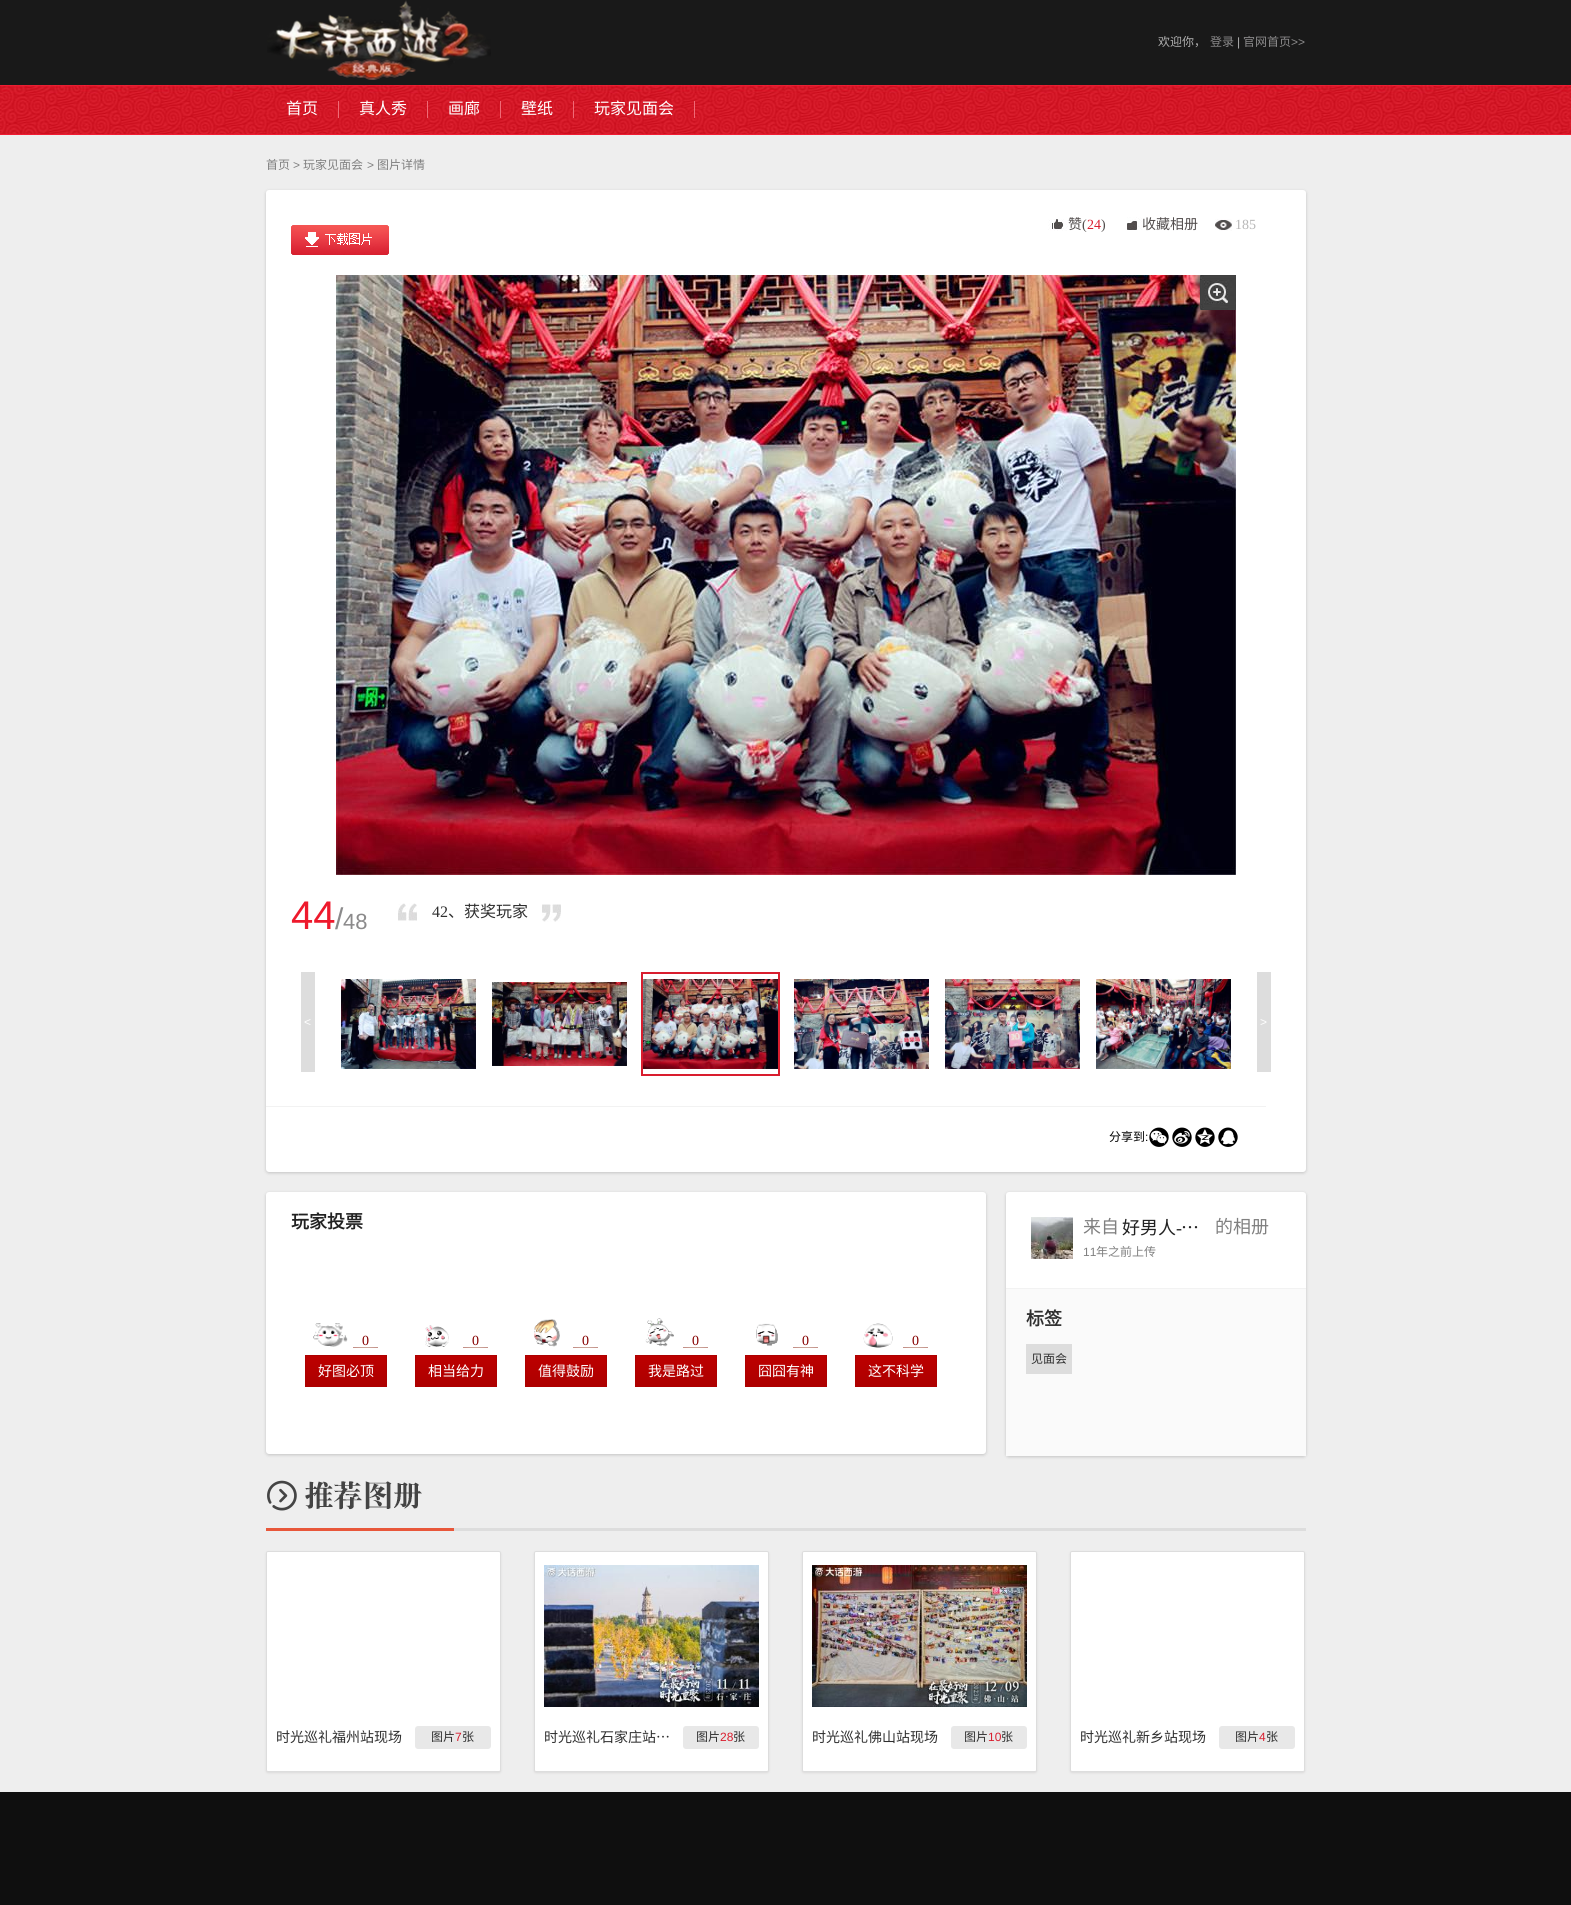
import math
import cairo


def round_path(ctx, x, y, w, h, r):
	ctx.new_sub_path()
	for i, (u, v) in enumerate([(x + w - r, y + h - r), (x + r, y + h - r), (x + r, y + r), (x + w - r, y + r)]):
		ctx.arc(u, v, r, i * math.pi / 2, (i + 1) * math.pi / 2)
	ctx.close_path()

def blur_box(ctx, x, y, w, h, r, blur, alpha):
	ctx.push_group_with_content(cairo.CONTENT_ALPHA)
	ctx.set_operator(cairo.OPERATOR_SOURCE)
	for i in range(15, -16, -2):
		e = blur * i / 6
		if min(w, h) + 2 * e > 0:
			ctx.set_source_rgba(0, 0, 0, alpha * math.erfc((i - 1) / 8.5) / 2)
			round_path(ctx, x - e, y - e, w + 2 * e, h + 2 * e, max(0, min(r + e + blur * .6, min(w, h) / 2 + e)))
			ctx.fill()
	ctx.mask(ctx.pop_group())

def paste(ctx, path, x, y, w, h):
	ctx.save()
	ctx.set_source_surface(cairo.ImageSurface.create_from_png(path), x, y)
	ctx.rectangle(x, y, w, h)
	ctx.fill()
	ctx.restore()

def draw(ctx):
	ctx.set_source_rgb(0.059, 0.059, 0.059)
	ctx.paint()
	ctx.set_source_rgb(0.933, 0.933, 0.933)
	ctx.rectangle(0, 135, 1571, 1657)
	ctx.fill()
	ctx.set_source_rgb(0.098, 0.098, 0.098)
	ctx.rectangle(0, 0, 1571, 85)
	ctx.fill()
	paste(ctx, 'media/1.png', 267, 0, 224, 80)
	ctx.select_font_face('Noto Sans CJK SC')
	ctx.set_font_size(12)
	ctx.set_source_rgb(0.69, 0.69, 0.69)
	ctx.move_to(1158, 46)
	ctx.show_text('欢迎你，')
	ctx.set_source_rgb(0.545, 0.541, 0.545)
	ctx.move_to(1210, 46)
	ctx.show_text('登录')
	ctx.select_font_face('Liberation Sans')
	ctx.set_source_rgb(0.69, 0.69, 0.69)
	ctx.move_to(1237, 46)
	ctx.show_text('|')
	ctx.select_font_face('Noto Sans CJK SC')
	ctx.set_source_rgb(0.545, 0.541, 0.545)
	ctx.move_to(1243, 46)
	ctx.show_text('官网首页')
	ctx.select_font_face('Liberation Sans')
	ctx.move_to(1291, 46)
	ctx.show_text('>>')
	paste(ctx, 'media/2.png', 0, 85, 1571, 50)
	ctx.set_source_rgb(0.941, 0.416, 0.463)
	ctx.rectangle(338, 101, 1, 17)
	ctx.fill()
	ctx.select_font_face('Noto Sans CJK SC')
	ctx.set_font_size(16)
	ctx.set_source_rgb(1, 1, 1)
	ctx.move_to(286, 114)
	ctx.show_text('首页')
	ctx.set_source_rgb(0.941, 0.416, 0.463)
	ctx.rectangle(427, 101, 1, 17)
	ctx.fill()
	ctx.set_source_rgb(1, 1, 1)
	ctx.move_to(359, 114)
	ctx.show_text('真人秀')
	ctx.set_source_rgb(0.941, 0.416, 0.463)
	ctx.rectangle(500, 101, 1, 17)
	ctx.fill()
	ctx.set_source_rgb(1, 1, 1)
	ctx.move_to(448, 114)
	ctx.show_text('画廊')
	ctx.set_source_rgb(0.941, 0.416, 0.463)
	ctx.rectangle(573, 101, 1, 17)
	ctx.fill()
	ctx.set_source_rgb(1, 1, 1)
	ctx.move_to(521, 114)
	ctx.show_text('壁纸')
	ctx.set_source_rgb(0.941, 0.416, 0.463)
	ctx.rectangle(694, 101, 1, 17)
	ctx.fill()
	ctx.set_source_rgb(1, 1, 1)
	ctx.move_to(594, 114)
	ctx.show_text('玩家见面会')
	ctx.set_font_size(12)
	ctx.set_source_rgb(0.502, 0.502, 0.502)
	ctx.move_to(266, 169)
	ctx.show_text('首页')
	ctx.select_font_face('Liberation Sans')
	ctx.move_to(293, 169)
	ctx.show_text('>')
	ctx.select_font_face('Noto Sans CJK SC')
	ctx.move_to(303, 169)
	ctx.show_text('玩家见面会')
	ctx.select_font_face('Liberation Sans')
	ctx.move_to(367, 169)
	ctx.show_text('>')
	ctx.select_font_face('Noto Sans CJK SC')
	ctx.move_to(377, 169)
	ctx.show_text('图片详情')
	ctx.set_source_rgb(0.016, 0, 0)
	blur_box(ctx, 266, 191, 1040, 982, 3, 1.5, 0.18)
	ctx.set_source_rgb(1, 1, 1)
	round_path(ctx, 266, 190, 1040, 982, 3)
	ctx.fill()
	paste(ctx, 'media/3.png', 291, 225, 98, 30)
	paste(ctx, 'media/4.png', 1048, 219, 20, 12)
	ctx.set_font_size(14)
	ctx.set_source_rgb(0.322, 0.302, 0.302)
	ctx.move_to(1068, 229)
	ctx.show_text('赞')
	ctx.select_font_face('Liberation Serif')
	ctx.move_to(1082, 229)
	ctx.show_text('(')
	ctx.set_source_rgb(0.851, 0.114, 0.18)
	ctx.move_to(1087, 229)
	ctx.show_text('24')
	ctx.set_source_rgb(0.322, 0.302, 0.302)
	ctx.move_to(1101, 229)
	ctx.show_text(')')
	paste(ctx, 'media/5.png', 1127, 217, 15, 13)
	ctx.select_font_face('Noto Sans CJK SC')
	ctx.move_to(1142, 229)
	ctx.show_text('收藏相册')
	paste(ctx, 'media/6.png', 1215, 219, 17, 12)
	ctx.select_font_face('Liberation Serif')
	ctx.set_source_rgb(0.718, 0.718, 0.718)
	ctx.move_to(1235, 229)
	ctx.show_text('185')
	paste(ctx, 'media/7.png', 336, 275, 900, 600)
	paste(ctx, 'media/8.png', 1200, 275, 36, 35)
	ctx.select_font_face('Liberation Sans')
	ctx.set_font_size(40)
	ctx.set_source_rgb(0.933, 0.098, 0.173)
	ctx.move_to(291, 929)
	ctx.show_text('44')
	ctx.set_font_size(30)
	ctx.set_source_rgb(0.545, 0.541, 0.545)
	ctx.move_to(335, 929)
	ctx.show_text('/')
	ctx.set_font_size(22)
	ctx.move_to(343, 929)
	ctx.show_text('48')
	paste(ctx, 'media/9.png', 398, 903, 19, 18)
	paste(ctx, 'media/10.png', 542, 904, 19, 18)
	ctx.select_font_face('Liberation Serif')
	ctx.set_font_size(16)
	ctx.set_source_rgb(0.184, 0.184, 0.184)
	ctx.move_to(432, 917)
	ctx.show_text('42')
	ctx.select_font_face('Noto Sans CJK SC')
	ctx.move_to(448, 917)
	ctx.show_text('、获奖玩家')
	ctx.set_source_rgb(0.867, 0.867, 0.867)
	ctx.rectangle(301, 972, 14, 100)
	ctx.fill()
	ctx.select_font_face('Liberation Sans')
	ctx.set_font_size(12)
	ctx.set_source_rgb(1, 1, 1)
	ctx.move_to(304, 1026)
	ctx.show_text('<')
	paste(ctx, 'media/11.png', 341, 979, 135, 90)
	paste(ctx, 'media/12.png', 492, 982, 135, 84)
	ctx.rectangle(642, 973, 137, 102)
	ctx.set_source_rgb(0.851, 0.114, 0.18)
	ctx.stroke()
	paste(ctx, 'media/13.png', 643, 979, 135, 90)
	paste(ctx, 'media/14.png', 794, 979, 135, 90)
	paste(ctx, 'media/15.png', 945, 979, 135, 90)
	paste(ctx, 'media/16.png', 1096, 979, 135, 90)
	ctx.set_source_rgb(0.867, 0.867, 0.867)
	ctx.rectangle(1257, 972, 14, 100)
	ctx.fill()
	ctx.set_source_rgb(1, 1, 1)
	ctx.move_to(1260, 1026)
	ctx.show_text('>')
	ctx.set_source_rgb(0.949, 0.949, 0.949)
	ctx.rectangle(266, 1106, 1000, 1)
	ctx.fill()
	ctx.select_font_face('Noto Sans CJK SC')
	ctx.set_source_rgb(0, 0, 0)
	ctx.move_to(1109, 1141)
	ctx.show_text('分享到')
	ctx.select_font_face('Liberation Sans')
	ctx.move_to(1145, 1141)
	ctx.show_text(':')
	paste(ctx, 'media/17.png', 1149, 1127, 20, 20)
	paste(ctx, 'media/18.png', 1172, 1127, 20, 20)
	paste(ctx, 'media/19.png', 1195, 1127, 20, 20)
	paste(ctx, 'media/20.png', 1218, 1127, 20, 20)
	ctx.set_source_rgb(0.016, 0, 0)
	blur_box(ctx, 266, 1193, 720, 262, 3, 1.5, 0.18)
	ctx.set_source_rgb(1, 1, 1)
	round_path(ctx, 266, 1192, 720, 262, 3)
	ctx.fill()
	ctx.select_font_face('Noto Sans CJK SC', cairo.FONT_SLANT_NORMAL, cairo.FONT_WEIGHT_BOLD)
	ctx.set_font_size(18)
	ctx.set_source_rgb(0.133, 0.133, 0.133)
	ctx.move_to(291, 1228)
	ctx.show_text('玩家投票')
	paste(ctx, 'media/21.png', 313, 1323, 35, 24)
	paste(ctx, 'media/22.png', 353, 1347, 25, 1)
	ctx.select_font_face('Liberation Serif')
	ctx.set_font_size(14)
	ctx.set_source_rgb(0.525, 0, 0)
	ctx.move_to(362, 1345)
	ctx.show_text('0')
	paste(ctx, 'media/23.png', 305, 1355, 82, 32)
	ctx.select_font_face('Noto Sans CJK SC')
	ctx.set_source_rgb(1, 1, 1)
	ctx.move_to(318, 1376)
	ctx.show_text('好图必顶')
	paste(ctx, 'media/24.png', 425, 1325, 24, 22)
	paste(ctx, 'media/22.png', 463, 1347, 25, 1)
	ctx.select_font_face('Liberation Serif')
	ctx.set_source_rgb(0.525, 0, 0)
	ctx.move_to(472, 1345)
	ctx.show_text('0')
	paste(ctx, 'media/23.png', 415, 1355, 82, 32)
	ctx.select_font_face('Noto Sans CJK SC')
	ctx.set_source_rgb(1, 1, 1)
	ctx.move_to(428, 1376)
	ctx.show_text('相当给力')
	paste(ctx, 'media/25.png', 534, 1319, 26, 28)
	paste(ctx, 'media/22.png', 573, 1347, 25, 1)
	ctx.select_font_face('Liberation Serif')
	ctx.set_source_rgb(0.525, 0, 0)
	ctx.move_to(582, 1345)
	ctx.show_text('0')
	paste(ctx, 'media/23.png', 525, 1355, 82, 32)
	ctx.select_font_face('Noto Sans CJK SC')
	ctx.set_source_rgb(1, 1, 1)
	ctx.move_to(538, 1376)
	ctx.show_text('值得鼓励')
	paste(ctx, 'media/26.png', 645, 1318, 29, 29)
	paste(ctx, 'media/22.png', 683, 1347, 25, 1)
	ctx.select_font_face('Liberation Serif')
	ctx.set_source_rgb(0.525, 0, 0)
	ctx.move_to(692, 1345)
	ctx.show_text('0')
	paste(ctx, 'media/23.png', 635, 1355, 82, 32)
	ctx.select_font_face('Noto Sans CJK SC')
	ctx.set_source_rgb(1, 1, 1)
	ctx.move_to(648, 1376)
	ctx.show_text('我是路过')
	paste(ctx, 'media/27.png', 756, 1323, 22, 23)
	paste(ctx, 'media/22.png', 793, 1347, 25, 1)
	ctx.select_font_face('Liberation Serif')
	ctx.set_source_rgb(0.525, 0, 0)
	ctx.move_to(802, 1345)
	ctx.show_text('0')
	paste(ctx, 'media/23.png', 745, 1355, 82, 32)
	ctx.select_font_face('Noto Sans CJK SC')
	ctx.set_source_rgb(1, 1, 1)
	ctx.move_to(758, 1376)
	ctx.show_text('囧囧有神')
	paste(ctx, 'media/28.png', 863, 1323, 30, 25)
	paste(ctx, 'media/22.png', 903, 1347, 25, 1)
	ctx.select_font_face('Liberation Serif')
	ctx.set_source_rgb(0.525, 0, 0)
	ctx.move_to(912, 1345)
	ctx.show_text('0')
	paste(ctx, 'media/23.png', 855, 1355, 82, 32)
	ctx.select_font_face('Noto Sans CJK SC')
	ctx.set_source_rgb(1, 1, 1)
	ctx.move_to(868, 1376)
	ctx.show_text('这不科学')
	ctx.set_source_rgb(0.016, 0, 0)
	blur_box(ctx, 1006, 1193, 300, 264, 3, 1.5, 0.18)
	ctx.set_source_rgb(1, 1, 1)
	round_path(ctx, 1006, 1192, 300, 264, 3)
	ctx.fill()
	paste(ctx, 'media/29.png', 1031, 1217, 42, 42)
	ctx.set_font_size(18)
	ctx.set_source_rgb(0.502, 0.502, 0.502)
	ctx.move_to(1083, 1233)
	ctx.show_text('来自')
	ctx.set_source_rgb(0.133, 0.133, 0.133)
	ctx.move_to(1122, 1234)
	ctx.show_text('好男人')
	ctx.move_to(1181, 1234)
	ctx.show_text('…')
	ctx.select_font_face('Liberation Serif')
	ctx.move_to(1176, 1234)
	ctx.show_text('-')
	ctx.select_font_face('Noto Sans CJK SC')
	ctx.set_source_rgb(0.502, 0.502, 0.502)
	ctx.move_to(1215, 1233)
	ctx.show_text('的相册')
	ctx.select_font_face('Liberation Sans')
	ctx.set_font_size(12)
	ctx.move_to(1083, 1256)
	ctx.show_text('11')
	ctx.select_font_face('Noto Sans CJK SC')
	ctx.move_to(1096, 1256)
	ctx.show_text('年之前上传')
	ctx.set_source_rgb(0.98, 0.98, 0.98)
	ctx.rectangle(1006, 1289, 300, 167)
	ctx.fill()
	ctx.set_source_rgb(0.949, 0.949, 0.949)
	ctx.rectangle(1006, 1288, 300, 1)
	ctx.fill()
	ctx.select_font_face('Noto Sans CJK SC', cairo.FONT_SLANT_NORMAL, cairo.FONT_WEIGHT_BOLD)
	ctx.set_font_size(18)
	ctx.set_source_rgb(0.184, 0.184, 0.184)
	ctx.move_to(1026, 1325)
	ctx.show_text('标签')
	ctx.set_source_rgb(0.867, 0.867, 0.867)
	ctx.rectangle(1026, 1344, 46, 30)
	ctx.fill()
	ctx.select_font_face('Noto Sans CJK SC')
	ctx.set_font_size(12)
	ctx.set_source_rgb(0.184, 0.184, 0.184)
	ctx.move_to(1031, 1363)
	ctx.show_text('见面会')
	ctx.set_source_rgb(0.867, 0.867, 0.867)
	ctx.rectangle(454, 1528, 852, 3)
	ctx.fill()
	paste(ctx, 'media/30.png', 266, 1480, 188, 51)
	ctx.set_source_rgb(0.859, 0.855, 0.855)
	blur_box(ctx, 266, 1552, 235, 221, 2, 1, 1)
	ctx.set_source_rgb(1, 1, 1)
	round_path(ctx, 266.5, 1551.5, 234, 220, 1.5)
	ctx.fill_preserve()
	ctx.set_source_rgb(0.867, 0.867, 0.867)
	ctx.set_line_width(1)
	ctx.stroke()
	ctx.set_font_size(14)
	ctx.set_source_rgb(0.184, 0.184, 0.184)
	ctx.move_to(276, 1742)
	ctx.show_text('时光巡礼福州站现场')
	ctx.set_source_rgb(0.91, 0.91, 0.91)
	round_path(ctx, 415, 1726, 76, 23, 3)
	ctx.fill()
	ctx.set_font_size(12)
	ctx.set_source_rgb(0.184, 0.184, 0.184)
	ctx.move_to(431, 1741)
	ctx.show_text('图片')
	ctx.select_font_face('Liberation Sans')
	ctx.set_source_rgb(0.851, 0.114, 0.18)
	ctx.move_to(455, 1741)
	ctx.show_text('7')
	ctx.select_font_face('Noto Sans CJK SC')
	ctx.set_source_rgb(0.184, 0.184, 0.184)
	ctx.move_to(462, 1741)
	ctx.show_text('张')
	ctx.set_source_rgb(0.859, 0.855, 0.855)
	blur_box(ctx, 534, 1552, 235, 221, 2, 1, 1)
	ctx.set_source_rgb(1, 1, 1)
	round_path(ctx, 534.5, 1551.5, 234, 220, 1.5)
	ctx.fill_preserve()
	ctx.set_source_rgb(0.867, 0.867, 0.867)
	ctx.stroke()
	paste(ctx, 'media/31.png', 544, 1565, 215, 142)
	ctx.set_font_size(14)
	ctx.set_source_rgb(0.184, 0.184, 0.184)
	ctx.move_to(544, 1742)
	ctx.show_text('时光巡礼石家庄站…')
	ctx.set_source_rgb(0.91, 0.91, 0.91)
	round_path(ctx, 683, 1726, 76, 23, 3)
	ctx.fill()
	ctx.set_font_size(12)
	ctx.set_source_rgb(0.184, 0.184, 0.184)
	ctx.move_to(696, 1741)
	ctx.show_text('图片')
	ctx.select_font_face('Liberation Sans')
	ctx.set_source_rgb(0.851, 0.114, 0.18)
	ctx.move_to(720, 1741)
	ctx.show_text('28')
	ctx.select_font_face('Noto Sans CJK SC')
	ctx.set_source_rgb(0.184, 0.184, 0.184)
	ctx.move_to(733, 1741)
	ctx.show_text('张')
	ctx.set_source_rgb(0.859, 0.855, 0.855)
	blur_box(ctx, 802, 1552, 235, 221, 2, 1, 1)
	ctx.set_source_rgb(1, 1, 1)
	round_path(ctx, 802.5, 1551.5, 234, 220, 1.5)
	ctx.fill_preserve()
	ctx.set_source_rgb(0.867, 0.867, 0.867)
	ctx.stroke()
	paste(ctx, 'media/32.png', 812, 1565, 215, 142)
	ctx.set_font_size(14)
	ctx.set_source_rgb(0.184, 0.184, 0.184)
	ctx.move_to(812, 1742)
	ctx.show_text('时光巡礼佛山站现场')
	ctx.set_source_rgb(0.91, 0.91, 0.91)
	round_path(ctx, 951, 1726, 76, 23, 3)
	ctx.fill()
	ctx.set_font_size(12)
	ctx.set_source_rgb(0.184, 0.184, 0.184)
	ctx.move_to(964, 1741)
	ctx.show_text('图片')
	ctx.select_font_face('Liberation Sans')
	ctx.set_source_rgb(0.851, 0.114, 0.18)
	ctx.move_to(988, 1741)
	ctx.show_text('10')
	ctx.select_font_face('Noto Sans CJK SC')
	ctx.set_source_rgb(0.184, 0.184, 0.184)
	ctx.move_to(1001, 1741)
	ctx.show_text('张')
	ctx.set_source_rgb(0.859, 0.855, 0.855)
	blur_box(ctx, 1070, 1552, 235, 221, 2, 1, 1)
	ctx.set_source_rgb(1, 1, 1)
	round_path(ctx, 1070.5, 1551.5, 234, 220, 1.5)
	ctx.fill_preserve()
	ctx.set_source_rgb(0.867, 0.867, 0.867)
	ctx.stroke()
	ctx.set_font_size(14)
	ctx.set_source_rgb(0.184, 0.184, 0.184)
	ctx.move_to(1080, 1742)
	ctx.show_text('时光巡礼新乡站现场')
	ctx.set_source_rgb(0.91, 0.91, 0.91)
	round_path(ctx, 1219, 1726, 76, 23, 3)
	ctx.fill()
	ctx.set_font_size(12)
	ctx.set_source_rgb(0.184, 0.184, 0.184)
	ctx.move_to(1235, 1741)
	ctx.show_text('图片')
	ctx.select_font_face('Liberation Sans')
	ctx.set_source_rgb(0.851, 0.114, 0.18)
	ctx.move_to(1259, 1741)
	ctx.show_text('4')
	ctx.select_font_face('Noto Sans CJK SC')
	ctx.set_source_rgb(0.184, 0.184, 0.184)
	ctx.move_to(1266, 1741)
	ctx.show_text('张')


surface = cairo.ImageSurface(cairo.FORMAT_RGB24, 1571, 1905)
ctx = cairo.Context(surface)
options = cairo.FontOptions()
options.set_hint_metrics(cairo.HINT_METRICS_OFF)
options.set_hint_style(cairo.HINT_STYLE_NONE)
ctx.set_font_options(options)
ctx.set_miter_limit(4)
draw(ctx)
surface.write_to_png('image.png')
